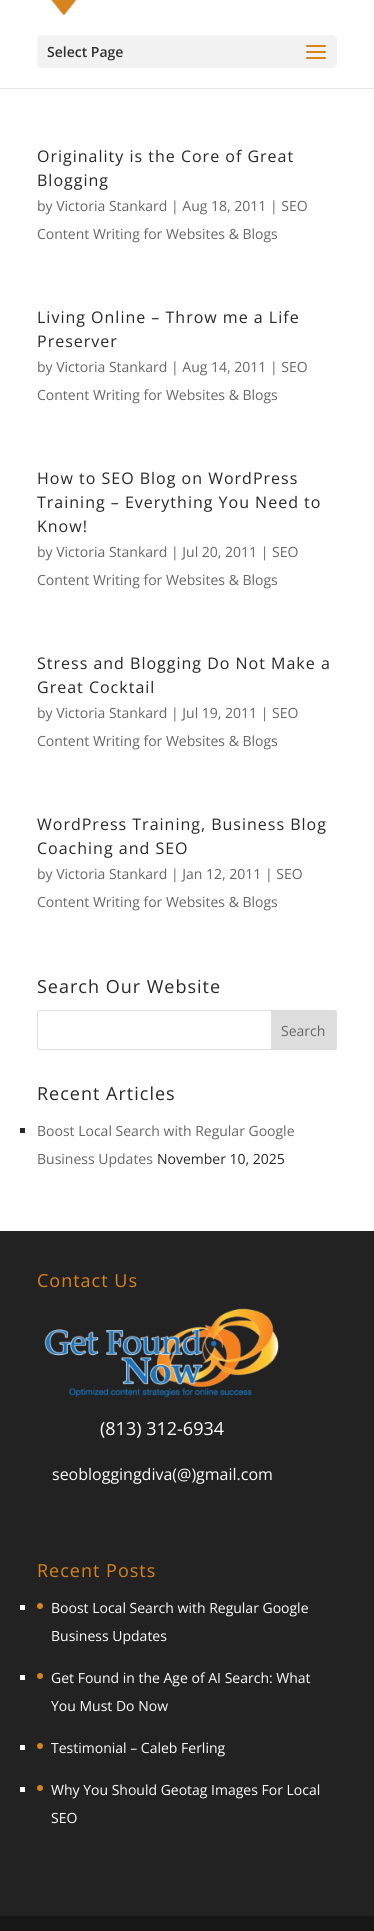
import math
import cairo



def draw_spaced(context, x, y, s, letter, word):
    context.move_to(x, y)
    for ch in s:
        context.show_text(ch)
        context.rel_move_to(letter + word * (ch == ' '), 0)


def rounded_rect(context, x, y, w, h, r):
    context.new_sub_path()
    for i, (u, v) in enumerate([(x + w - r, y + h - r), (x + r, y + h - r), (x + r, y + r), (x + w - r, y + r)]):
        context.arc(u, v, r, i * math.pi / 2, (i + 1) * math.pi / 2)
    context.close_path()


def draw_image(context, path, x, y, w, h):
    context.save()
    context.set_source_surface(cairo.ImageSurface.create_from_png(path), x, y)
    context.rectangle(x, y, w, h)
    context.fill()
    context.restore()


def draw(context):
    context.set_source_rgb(1, 1, 1)
    context.paint()
    context.set_source_rgb(230 / 255, 230 / 255, 230 / 255)
    context.rectangle(0, 88, 374, 1)
    context.fill()
    draw_image(context, "images/1.png", 51, 0, 26, 15)
    context.set_source_rgb(242 / 255, 242 / 255, 242 / 255)
    rounded_rect(context, 37, 35, 300, 33, 5)
    context.fill()
    draw_image(context, "images/2.png", 306, 45, 20, 14)
    rounded_rect(context, 37.5, 1010.5, 299, 39, 2.5)
    context.set_source_rgb(221 / 255, 221 / 255, 221 / 255)
    context.set_line_width(1)
    context.stroke()
    context.new_path()
    context.move_to(271.5, 1010.5)
    context.line_to(334, 1010.5)
    context.curve_to(335.5, 1010.5, 336.5, 1011.5, 336.5, 1013)
    context.line_to(336.5, 1047)
    context.curve_to(336.5, 1048.5, 335.5, 1049.5, 334, 1049.5)
    context.line_to(271.5, 1049.5)
    context.close_path()
    context.fill_preserve()
    context.stroke()
    context.set_source_rgb(40 / 255, 40 / 255, 40 / 255)
    context.rectangle(20, 1128, 5, 5)
    context.fill()
    context.set_source_rgb(34 / 255, 34 / 255, 34 / 255)
    context.rectangle(0, 1231, 374, 685)
    context.fill()
    draw_image(context, "images/3.png", 44, 1308, 235, 90)
    context.set_source_rgb(1, 1, 1)
    context.rectangle(20, 1605, 5, 5)
    context.fill()
    context.set_source_rgb(215 / 255, 132 / 255, 28 / 255)
    context.arc(40, 1606, 3, 0, 2 * math.pi)
    context.fill()
    context.set_source_rgb(1, 1, 1)
    context.rectangle(20, 1675, 5, 5)
    context.fill()
    context.set_source_rgb(215 / 255, 132 / 255, 28 / 255)
    context.arc(40, 1676, 3, 0, 2 * math.pi)
    context.fill()
    context.set_source_rgb(1, 1, 1)
    context.rectangle(20, 1745, 5, 5)
    context.fill()
    context.set_source_rgb(215 / 255, 132 / 255, 28 / 255)
    context.arc(40, 1746, 3, 0, 2 * math.pi)
    context.fill()
    context.set_source_rgb(1, 1, 1)
    context.rectangle(20, 1787, 5, 5)
    context.fill()
    context.set_source_rgb(215 / 255, 132 / 255, 28 / 255)
    context.arc(40, 1788, 3, 0, 2 * math.pi)
    context.fill()
    context.set_source_rgb(23 / 255, 23 / 255, 23 / 255)
    context.rectangle(0, 1916, 374, 15)
    context.fill()
    context.select_font_face("Open Sans SemiBold")
    context.set_font_size(14)
    context.set_source_rgb(48 / 255, 48 / 255, 48 / 255)
    context.move_to(47, 57)
    context.show_text("Select Page")
    context.select_font_face("Open Sans")
    context.set_font_size(16)
    context.set_source_rgb(40 / 255, 40 / 255, 40 / 255)
    draw_spaced(context, 37, 162, "Originality is the Core of Great", 1, 0)
    draw_spaced(context, 37, 186, "Blogging", 1, 0)
    context.set_font_size(14)
    context.set_source_rgb(102 / 255, 102 / 255, 102 / 255)
    context.move_to(37, 211)
    context.show_text("by Victoria Stankard | Aug 18, 2011 | SEO")
    context.move_to(37, 239)
    context.show_text("Content Writing for Websites & Blogs")
    context.set_font_size(16)
    context.set_source_rgb(40 / 255, 40 / 255, 40 / 255)
    draw_spaced(context, 37, 323, "Living Online – Throw me a Life", 1, 0)
    draw_spaced(context, 37, 347, "Preserver", 1, 0)
    context.set_font_size(14)
    context.set_source_rgb(102 / 255, 102 / 255, 102 / 255)
    context.move_to(37, 372)
    context.show_text("by Victoria Stankard | Aug 14, 2011 | SEO")
    context.move_to(37, 400)
    context.show_text("Content Writing for Websites & Blogs")
    context.set_font_size(16)
    context.set_source_rgb(40 / 255, 40 / 255, 40 / 255)
    draw_spaced(context, 37, 484, "How to SEO Blog on WordPress", 1, 0)
    draw_spaced(context, 37, 508, "Training – Everything You Need to", 1, 0)
    draw_spaced(context, 37, 532, "Know!", 1, 0)
    context.set_font_size(14)
    context.set_source_rgb(102 / 255, 102 / 255, 102 / 255)
    context.move_to(37, 557)
    context.show_text("by Victoria Stankard | Jul 20, 2011 | SEO")
    context.move_to(37, 585)
    context.show_text("Content Writing for Websites & Blogs")
    context.set_font_size(16)
    context.set_source_rgb(40 / 255, 40 / 255, 40 / 255)
    draw_spaced(context, 37, 669, "Stress and Blogging Do Not Make a", 1, 0)
    draw_spaced(context, 37, 693, "Great Cocktail", 1, 0)
    context.set_font_size(14)
    context.set_source_rgb(102 / 255, 102 / 255, 102 / 255)
    context.move_to(37, 718)
    context.show_text("by Victoria Stankard | Jul 19, 2011 | SEO")
    context.move_to(37, 746)
    context.show_text("Content Writing for Websites & Blogs")
    context.set_font_size(16)
    context.set_source_rgb(40 / 255, 40 / 255, 40 / 255)
    draw_spaced(context, 37, 830, "WordPress Training, Business Blog", 1, 0)
    draw_spaced(context, 37, 854, "Coaching and SEO", 1, 0)
    context.set_font_size(14)
    context.set_source_rgb(102 / 255, 102 / 255, 102 / 255)
    context.move_to(37, 879)
    context.show_text("by Victoria Stankard | Jan 12, 2011 | SEO")
    context.move_to(37, 907)
    context.show_text("Content Writing for Websites & Blogs")
    context.set_font_size(18)
    context.set_source_rgb(40 / 255, 40 / 255, 40 / 255)
    draw_spaced(context, 37, 993, "Search Our Website", 1, 0)
    context.set_font_size(14)
    context.set_source_rgb(102 / 255, 102 / 255, 102 / 255)
    context.move_to(281, 1036)
    context.show_text("Search")
    context.set_font_size(18)
    context.set_source_rgb(40 / 255, 40 / 255, 40 / 255)
    draw_spaced(context, 37, 1100, "Recent Articles", 1, 0)
    context.set_font_size(14)
    context.set_source_rgb(102 / 255, 102 / 255, 102 / 255)
    context.move_to(37, 1136)
    context.show_text("Boost Local Search with Regular Google")
    context.move_to(37, 1164)
    context.show_text("Business Updates")
    context.set_source_rgb(40 / 255, 40 / 255, 40 / 255)
    context.move_to(157, 1164)
    context.show_text("November 10, 2025")
    context.set_font_size(18)
    context.set_source_rgb(215 / 255, 132 / 255, 28 / 255)
    draw_spaced(context, 37, 1287, "Contact Us", 1, 0)
    context.set_source_rgb(1, 1, 1)
    context.move_to(100, 1435)
    context.show_text("(813) 312-6934")
    context.set_font_size(16)
    context.move_to(52, 1480)
    context.show_text("seobloggingdiva(@)gmail.com")
    context.set_font_size(18)
    context.set_source_rgb(215 / 255, 132 / 255, 28 / 255)
    draw_spaced(context, 37, 1577, "Recent Posts", 1, 0)
    context.set_font_size(14)
    context.set_source_rgb(1, 1, 1)
    context.move_to(51, 1613)
    context.show_text("Boost Local Search with Regular Google")
    context.move_to(51, 1641)
    context.show_text("Business Updates")
    context.move_to(51, 1683)
    context.show_text("Get Found in the Age of AI Search: What")
    context.move_to(51, 1711)
    context.show_text("You Must Do Now")
    context.move_to(51, 1753)
    context.show_text("Testimonial – Caleb Ferling")
    context.move_to(51, 1795)
    context.show_text("Why You Should Geotag Images For Local")
    context.move_to(51, 1823)
    context.show_text("SEO")


surface = cairo.ImageSurface(cairo.Format.RGB24, 374, 1931)
context = cairo.Context(surface)
options = cairo.FontOptions()
options.set_hint_metrics(cairo.HintMetrics.OFF)
options.set_hint_style(cairo.HintStyle.NONE)
context.set_font_options(options)
context.set_miter_limit(4)
draw(context)
surface.write_to_png("out.png")
